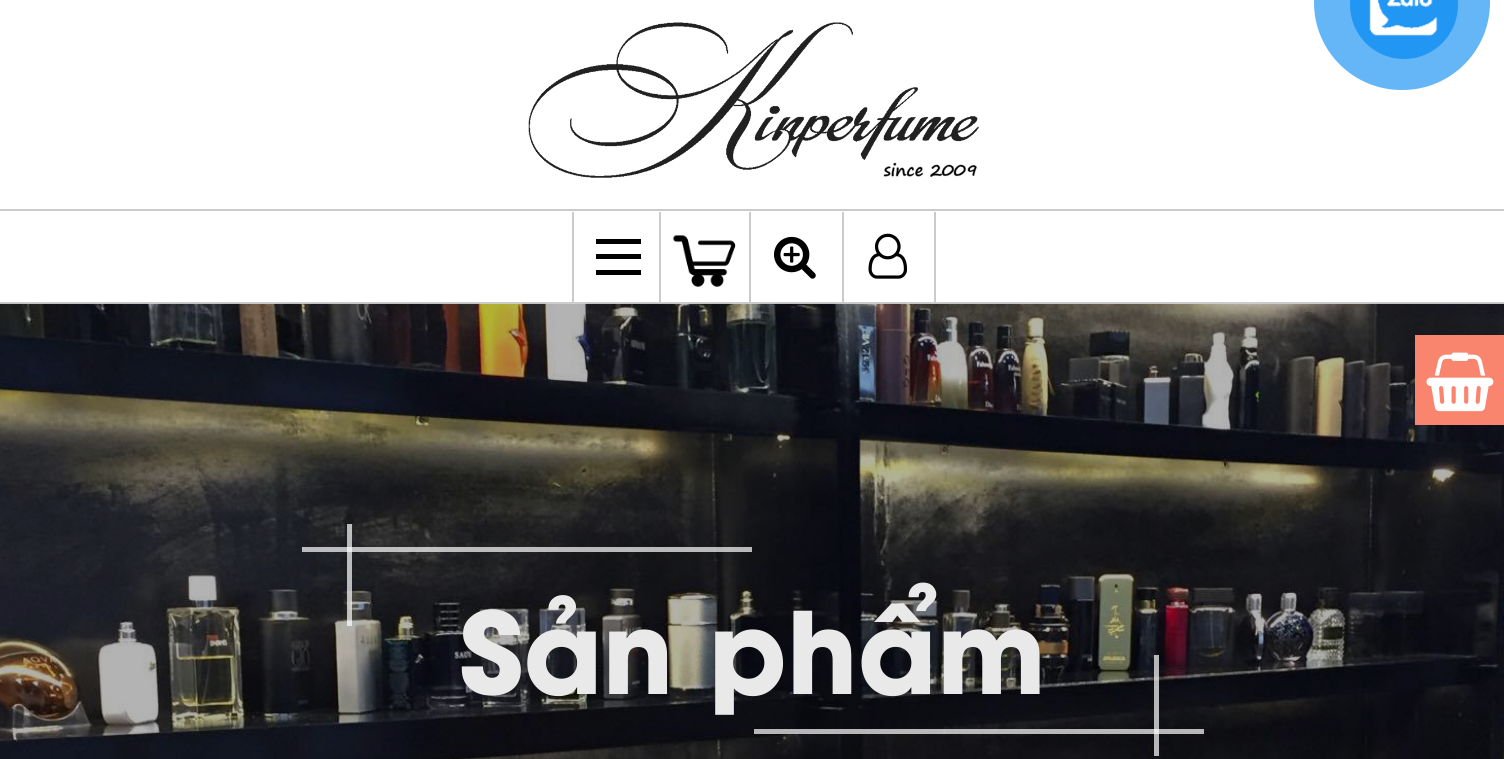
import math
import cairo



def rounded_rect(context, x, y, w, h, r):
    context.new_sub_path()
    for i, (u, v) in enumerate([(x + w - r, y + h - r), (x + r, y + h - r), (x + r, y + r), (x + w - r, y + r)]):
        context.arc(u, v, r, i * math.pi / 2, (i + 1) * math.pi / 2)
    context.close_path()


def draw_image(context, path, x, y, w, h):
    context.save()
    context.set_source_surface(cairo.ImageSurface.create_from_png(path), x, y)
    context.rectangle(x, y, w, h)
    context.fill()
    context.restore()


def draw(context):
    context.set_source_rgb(1, 1, 1)
    context.paint()
    context.set_source_rgb(100 / 255, 182 / 255, 247 / 255)
    rounded_rect(context, 1314, -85, 176, 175, 87.5)
    context.fill()
    context.set_source_rgb(33 / 255, 150 / 255, 243 / 255)
    context.arc(1404, 5, 54, 0, 2 * math.pi)
    context.fill()
    draw_image(context, "images/1.png", 1369, 0, 69, 36)
    draw_image(context, "images/2.png", 528, 22, 451, 156)
    context.set_source_rgb(204 / 255, 203 / 255, 203 / 255)
    context.rectangle(0, 209, 1504, 2)
    context.fill()
    context.rectangle(0, 302, 1504, 2)
    context.fill()
    context.rectangle(659, 212, 2, 90)
    context.fill()
    context.rectangle(572, 212, 2, 90)
    context.fill()
    context.set_source_rgb(0, 0, 0)
    context.rectangle(596, 254, 45, 5)
    context.fill()
    context.rectangle(596, 239, 45, 5)
    context.fill()
    context.rectangle(596, 270, 45, 5)
    context.fill()
    context.set_source_rgb(204 / 255, 203 / 255, 203 / 255)
    context.rectangle(749, 212, 2, 90)
    context.fill()
    draw_image(context, "images/3.png", 672, 235, 64, 52)
    context.rectangle(842, 212, 2, 90)
    context.fill()
    draw_image(context, "images/4.png", 774, 236, 42, 43)
    context.rectangle(934, 212, 2, 90)
    context.fill()
    draw_image(context, "images/5.png", 868, 233, 40, 46)
    draw_image(context, "images/7.png", 0, 303, 1504, 456)
    context.set_source_rgb(249 / 255, 133 / 255, 111 / 255)
    context.rectangle(1415, 335, 89, 90)
    context.fill()
    draw_image(context, "images/6.png", 1426, 352, 68, 60)
    context.set_source_rgba(1, 1, 1, 0.7)
    context.rectangle(347, 524, 5, 102)
    context.fill()
    context.rectangle(302, 547, 450, 5)
    context.fill()
    context.rectangle(1154, 655, 5, 101)
    context.fill()
    context.rectangle(754, 729, 450, 5)
    context.fill()
    context.select_font_face("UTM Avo", cairo.FontSlant.NORMAL, cairo.FontWeight.BOLD)
    context.set_font_size(112.5)
    context.set_source_rgb(233 / 255, 233 / 255, 233 / 255)
    context.move_to(459, 694)
    context.show_text("Sản phẩm")


surface = cairo.ImageSurface(cairo.Format.RGB24, 1504, 759)
context = cairo.Context(surface)
options = cairo.FontOptions()
options.set_hint_metrics(cairo.HintMetrics.OFF)
options.set_hint_style(cairo.HintStyle.NONE)
context.set_font_options(options)
context.set_miter_limit(4)
draw(context)
surface.write_to_png("out.png")
